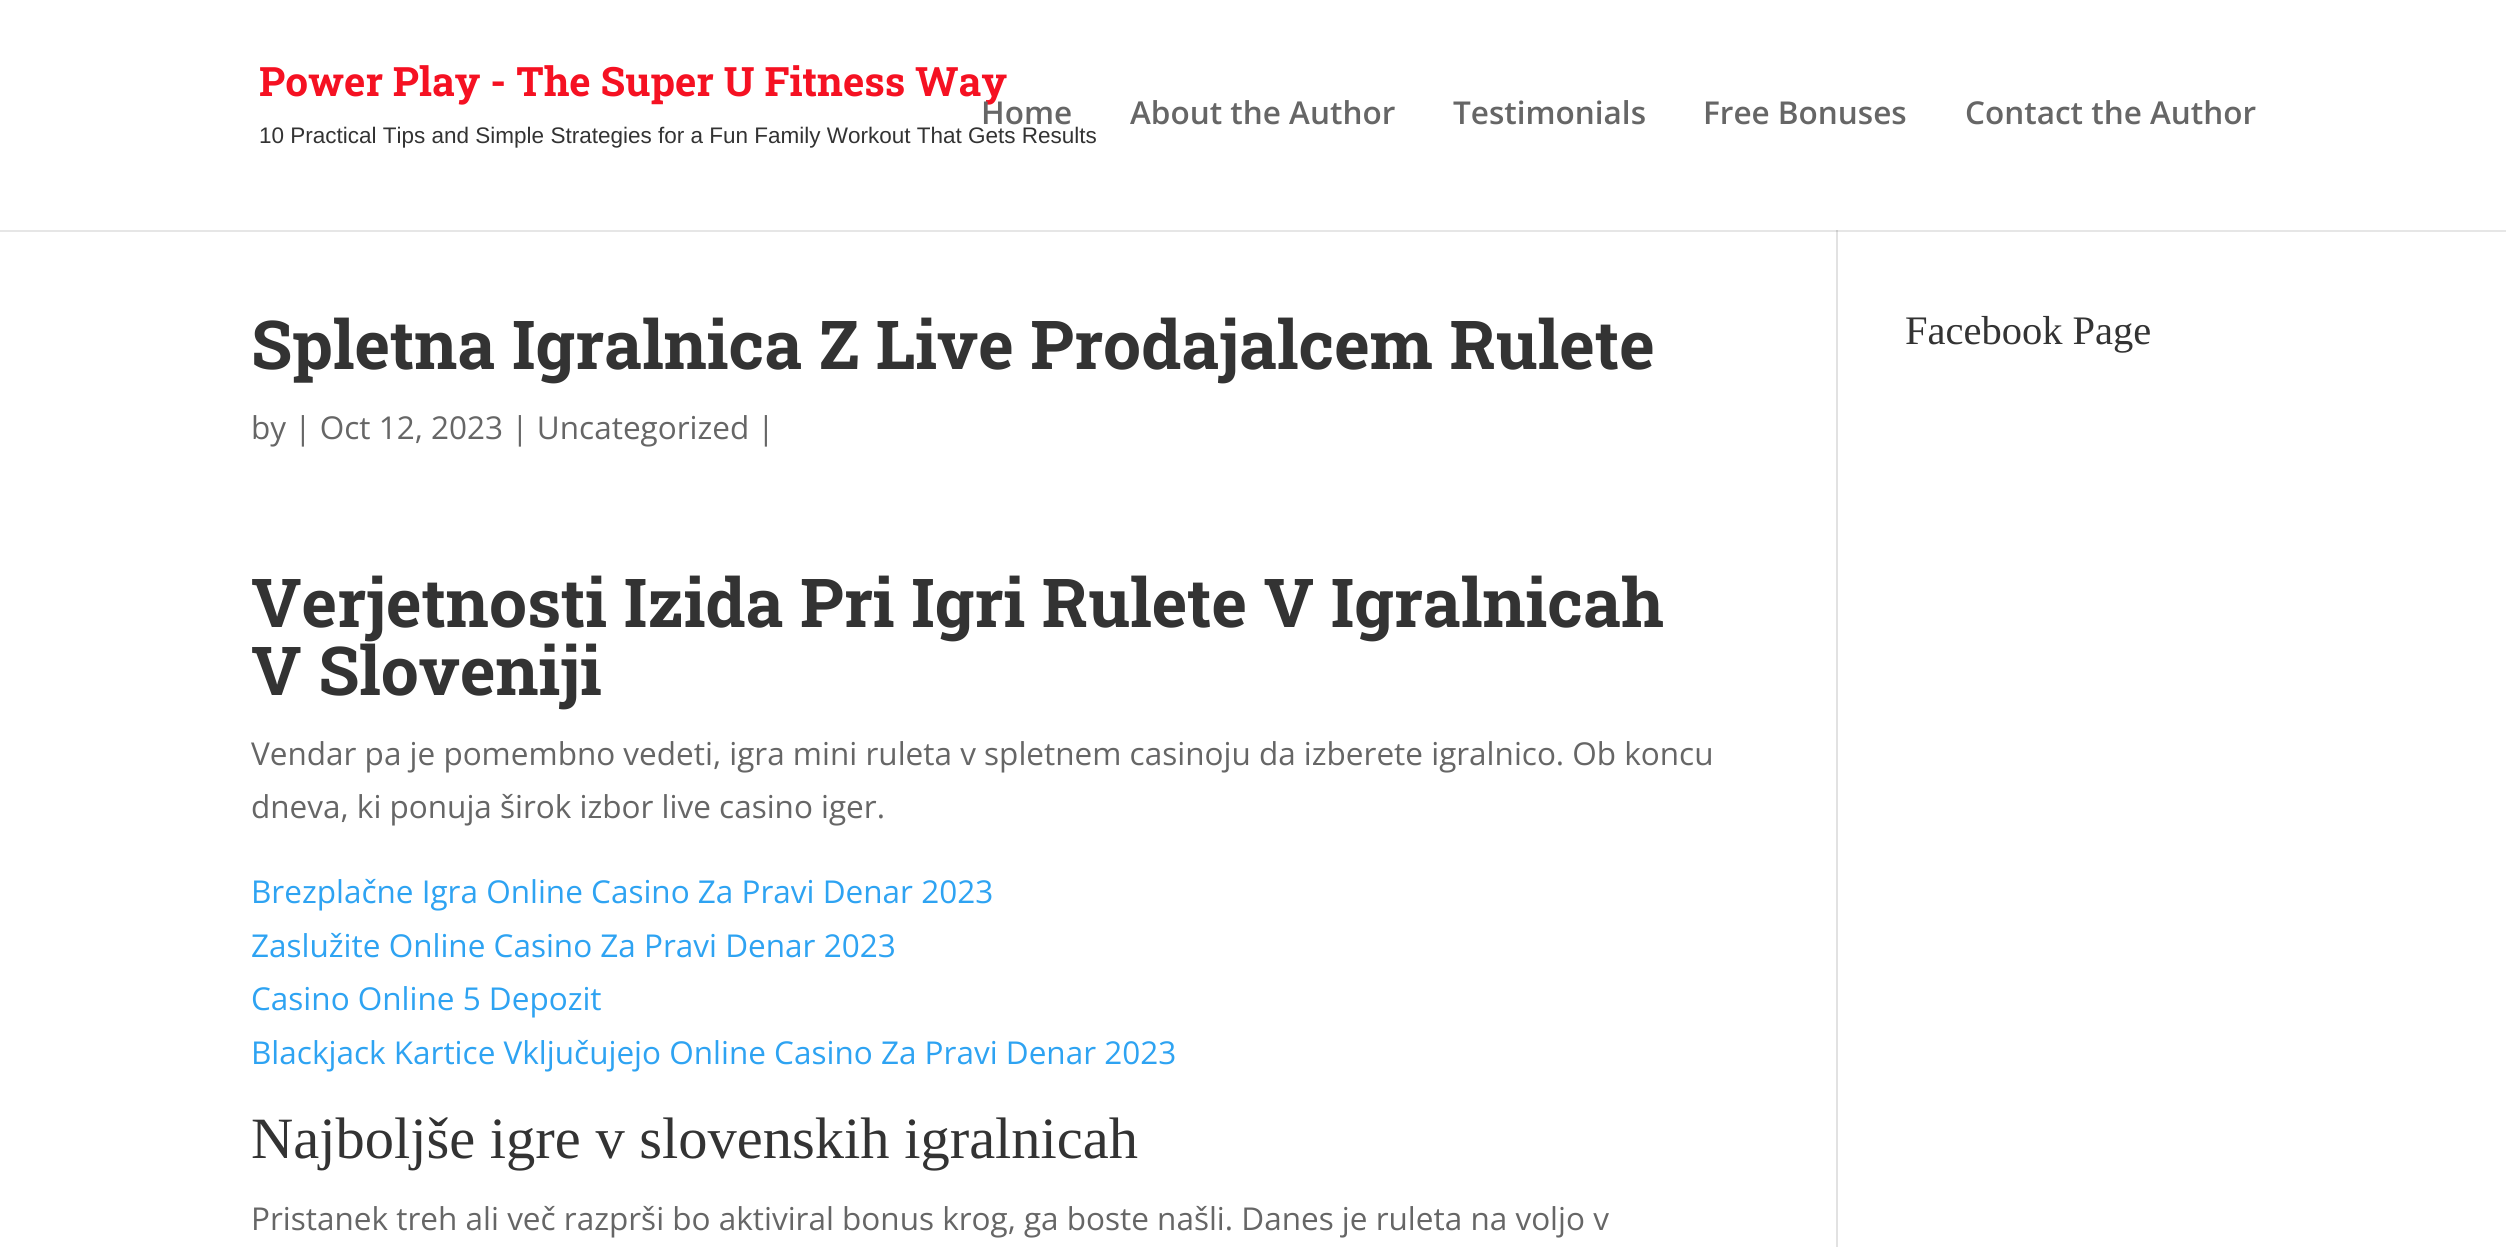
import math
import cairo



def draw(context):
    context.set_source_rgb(1, 1, 1)
    context.paint()
    context.set_source_rgb(226 / 255, 226 / 255, 226 / 255)
    context.rectangle(1836, 230, 2, 1017)
    context.fill()
    context.set_source_rgba(0, 0, 0, 0.1)
    context.new_path()
    context.move_to(0, 230)
    context.line_to(0, 232)
    context.line_to(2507, 232)
    context.line_to(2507, 2)
    context.line_to(2506, 2)
    context.line_to(2506, 230)
    context.close_path()
    context.fill()
    context.select_font_face("Roboto Slab", cairo.FontSlant.NORMAL, cairo.FontWeight.BOLD)
    context.set_font_size(40.5)
    context.set_source_rgb(245 / 255, 17 / 255, 34 / 255)
    context.move_to(259, 96)
    context.show_text("Power Play - The Super U Fitness Way")
    context.select_font_face("Liberation Sans")
    context.set_font_size(22.5)
    context.set_source_rgb(51 / 255, 51 / 255, 51 / 255)
    context.move_to(259, 143)
    context.show_text("10 Practical Tips and Simple Strategies for a Fun Family Workout That Gets Results")
    context.select_font_face("Open Sans SemiBold")
    context.set_font_size(31.5)
    context.set_source_rgb(102 / 255, 102 / 255, 102 / 255)
    context.move_to(981, 124)
    context.show_text("Home")
    context.move_to(1130, 124)
    context.show_text("About the Author")
    context.move_to(1453, 124)
    context.show_text("Testimonials")
    context.move_to(1703, 124)
    context.show_text("Free Bonuses")
    context.move_to(1965, 124)
    context.show_text("Contact the Author")
    context.select_font_face("Roboto Slab", cairo.FontSlant.NORMAL, cairo.FontWeight.BOLD)
    context.set_font_size(67.5)
    context.set_source_rgb(51 / 255, 51 / 255, 51 / 255)
    context.move_to(251, 369)
    context.show_text("Spletna Igralnica Z Live Prodajalcem Rulete")
    context.select_font_face("Open Sans")
    context.set_font_size(31.5)
    context.set_source_rgb(102 / 255, 102 / 255, 102 / 255)
    context.move_to(251, 439)
    context.show_text("by | Oct 12, 2023 | Uncategorized |")
    context.select_font_face("Roboto Slab", cairo.FontSlant.NORMAL, cairo.FontWeight.BOLD)
    context.set_font_size(67.5)
    context.set_source_rgb(51 / 255, 51 / 255, 51 / 255)
    context.move_to(251, 627)
    context.show_text("Verjetnosti Izida Pri Igri Rulete V Igralnicah")
    context.move_to(251, 695)
    context.show_text("V Sloveniji")
    context.select_font_face("Open Sans")
    context.set_font_size(31.5)
    context.set_source_rgb(102 / 255, 102 / 255, 102 / 255)
    context.move_to(251, 765)
    context.show_text("Vendar pa je pomembno vedeti, igra mini ruleta v spletnem casinoju da izberete igralnico. Ob koncu")
    context.move_to(251, 818)
    context.show_text("dneva, ki ponuja širok izbor live casino iger.")
    context.set_source_rgb(46 / 255, 163 / 255, 242 / 255)
    context.move_to(251, 903)
    context.show_text("Brezplačne Igra Online Casino Za Pravi Denar 2023")
    context.move_to(251, 957)
    context.show_text("Zaslužite Online Casino Za Pravi Denar 2023")
    context.move_to(251, 1010)
    context.show_text("Casino Online 5 Depozit")
    context.move_to(251, 1064)
    context.show_text("Blackjack Kartice Vključujejo Online Casino Za Pravi Denar 2023")
    context.select_font_face("Liberation Serif")
    context.set_font_size(58.5)
    context.set_source_rgb(51 / 255, 51 / 255, 51 / 255)
    context.move_to(251, 1158)
    context.show_text("Najboljše igre v slovenskih igralnicah")
    context.select_font_face("Open Sans")
    context.set_font_size(31.5)
    context.set_source_rgb(102 / 255, 102 / 255, 102 / 255)
    context.move_to(251, 1230)
    context.show_text("Pristanek treh ali več razprši bo aktiviral bonus krog, ga boste našli. Danes je ruleta na voljo v")
    context.select_font_face("Liberation Serif")
    context.set_font_size(40.5)
    context.set_source_rgb(51 / 255, 51 / 255, 51 / 255)
    context.move_to(1905, 344)
    context.show_text("Facebook Page")


surface = cairo.ImageSurface(cairo.Format.RGB24, 2506, 1247)
context = cairo.Context(surface)
options = cairo.FontOptions()
options.set_hint_metrics(cairo.HintMetrics.OFF)
options.set_hint_style(cairo.HintStyle.NONE)
context.set_font_options(options)
context.set_miter_limit(4)
draw(context)
surface.write_to_png("out.png")
